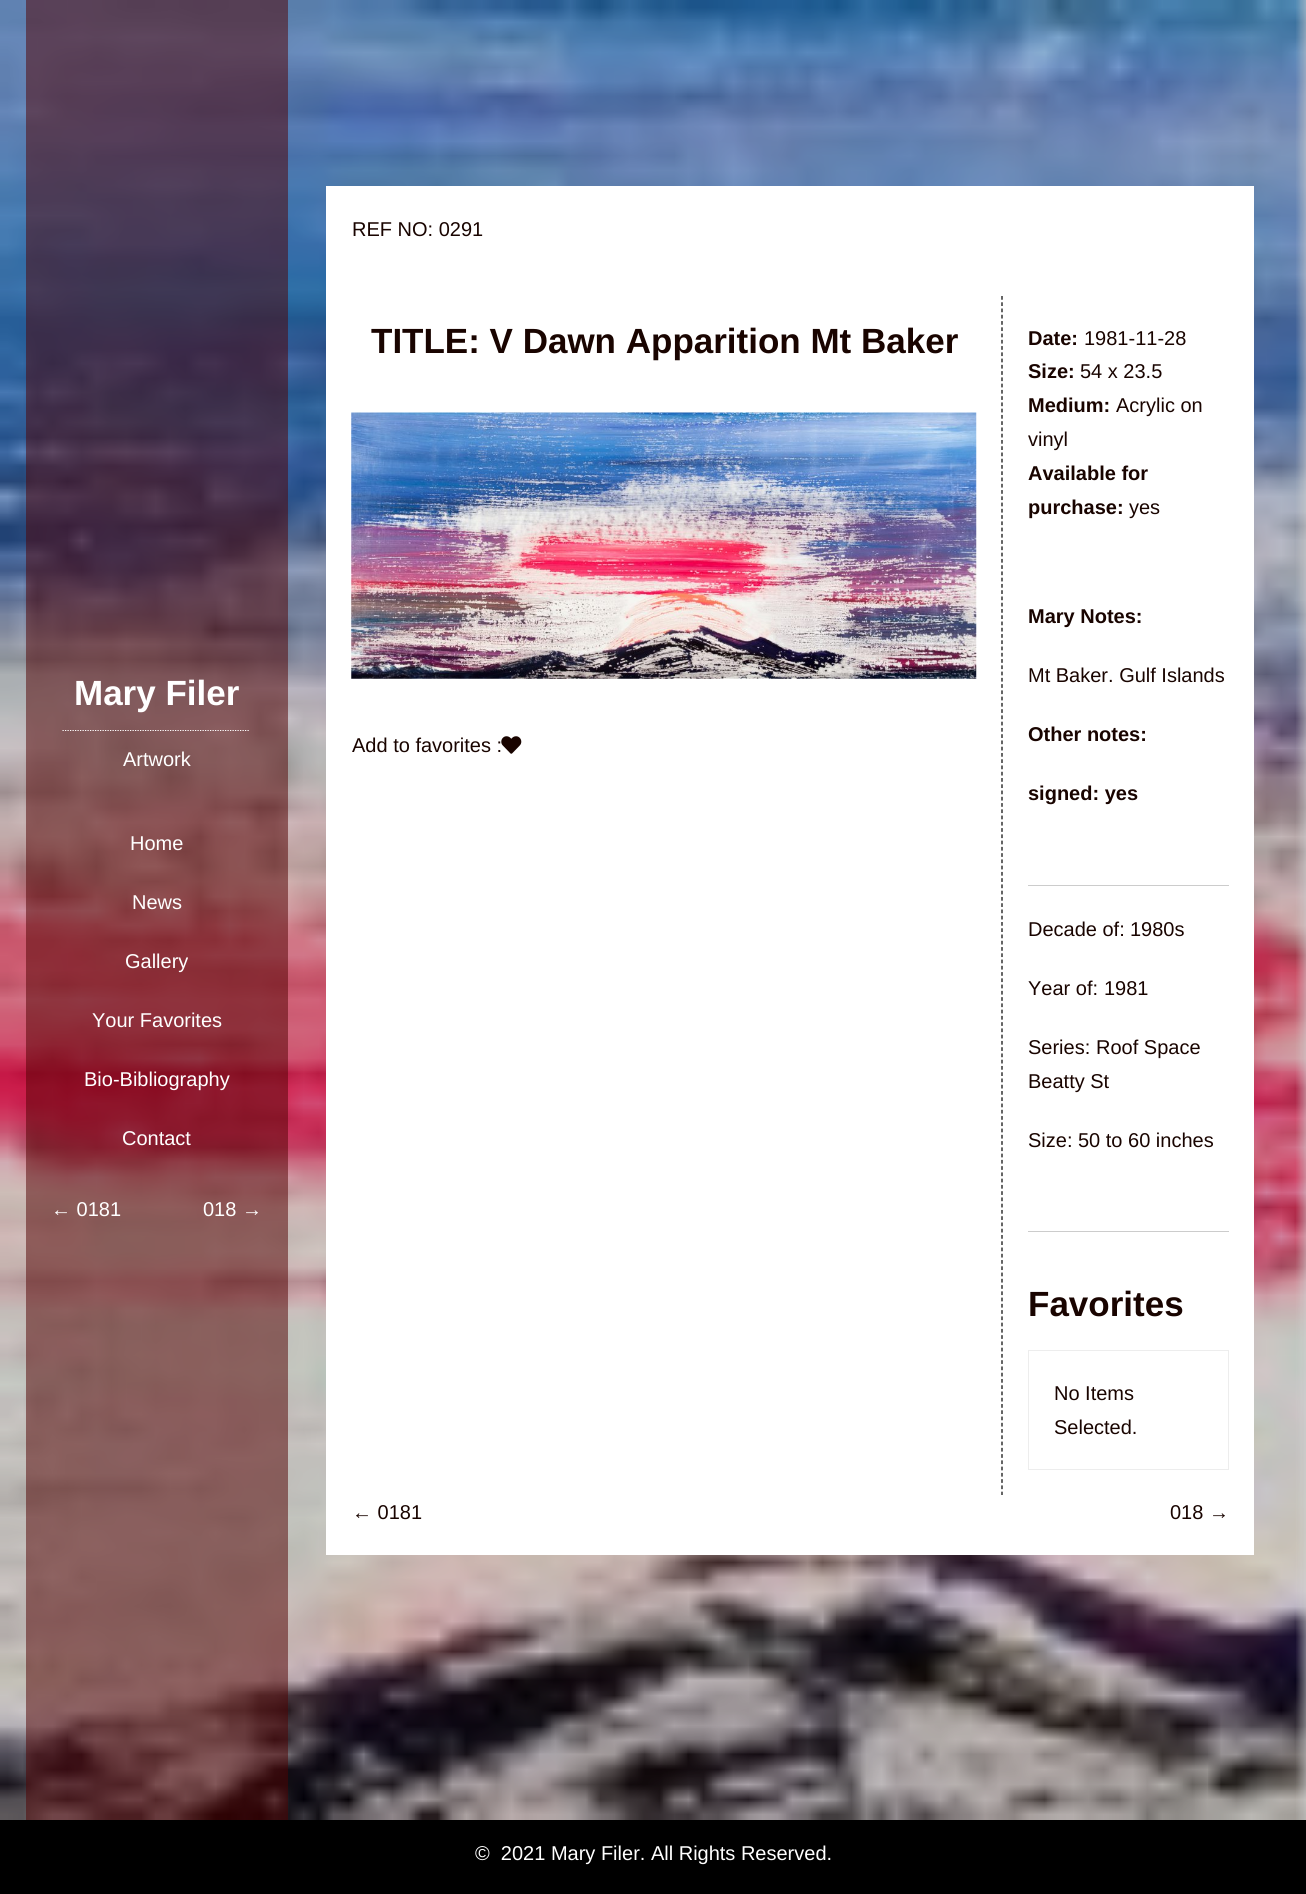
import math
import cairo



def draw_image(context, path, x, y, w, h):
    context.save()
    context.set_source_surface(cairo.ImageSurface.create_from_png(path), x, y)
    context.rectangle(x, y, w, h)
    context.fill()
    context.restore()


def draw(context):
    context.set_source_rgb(209 / 255, 209 / 255, 209 / 255)
    context.paint()
    draw_image(context, "images/1.png", 0, 0, 1306, 1820)
    context.set_source_rgba(81 / 255, 0, 0, 0.51)
    context.rectangle(26, 0, 262, 1820)
    context.fill()
    context.save()
    context.rectangle(39, 730, 236, 1)
    context.clip()
    context.new_path()
    context.move_to(62.5, 730.5)
    context.line_to(250, 730.5)
    context.set_source_rgb(1, 1, 1)
    context.set_line_width(1.2)
    context.set_dash([1.25, 1.25])
    context.stroke()
    context.restore()
    context.set_source_rgb(1, 1, 1)
    context.rectangle(326, 186, 928, 1369)
    context.fill()
    draw_image(context, "images/2.png", 351, 412, 626, 267)
    draw_image(context, "images/3.png", 501, 736, 21, 18)
    context.new_path()
    context.move_to(1002, 296)
    context.line_to(1002, 1495)
    context.set_source_rgb(0, 0, 0)
    context.set_line_width(1.2)
    context.set_dash([3.75, 2.51])
    context.stroke()
    context.set_source_rgb(204 / 255, 204 / 255, 204 / 255)
    context.rectangle(1028, 885, 201, 1)
    context.fill()
    context.rectangle(1028, 1231, 201, 1)
    context.fill()
    context.rectangle(1028.5, 1350.5, 200, 119)
    context.set_source_rgb(237 / 255, 237 / 255, 237 / 255)
    context.set_line_width(1)
    context.set_dash([])
    context.stroke()
    context.set_source_rgb(0, 0, 0)
    context.rectangle(0, 1820, 1306, 74)
    context.fill()
    context.select_font_face("Liberation Sans", cairo.FontSlant.NORMAL, cairo.FontWeight.BOLD)
    context.set_font_size(35)
    context.set_source_rgb(1, 1, 1)
    context.move_to(74, 705)
    context.show_text("Mary Filer")
    context.select_font_face("Liberation Sans")
    context.set_font_size(20)
    context.move_to(123, 766)
    context.show_text("Artwork")
    context.move_to(130, 850)
    context.show_text("Home")
    context.move_to(132, 909)
    context.show_text("News")
    context.move_to(125, 968)
    context.show_text("Gallery")
    context.move_to(92, 1027)
    context.show_text("Your Favorites")
    context.move_to(84, 1086)
    context.show_text("Bio-Bibliography")
    context.move_to(122, 1145)
    context.show_text("Contact")
    context.move_to(51, 1216)
    context.show_text("← 0181")
    context.move_to(203, 1216)
    context.show_text("018 →")
    context.set_source_rgb(25 / 255, 4 / 255, 0)
    context.move_to(352, 236)
    context.show_text("REF NO: 0291")
    context.select_font_face("Liberation Sans", cairo.FontSlant.NORMAL, cairo.FontWeight.BOLD)
    context.set_font_size(35)
    context.move_to(371, 353)
    context.show_text("TITLE: V Dawn Apparition Mt Baker")
    context.select_font_face("Liberation Sans")
    context.set_font_size(20)
    context.move_to(352, 752)
    context.show_text("Add to favorites :")
    context.select_font_face("Liberation Sans", cairo.FontSlant.NORMAL, cairo.FontWeight.BOLD)
    context.move_to(1028, 345)
    context.show_text("Date:")
    context.select_font_face("Liberation Sans")
    context.move_to(1084, 345)
    context.show_text("1981-11-28")
    context.select_font_face("Liberation Sans", cairo.FontSlant.NORMAL, cairo.FontWeight.BOLD)
    context.move_to(1028, 378)
    context.show_text("Size:")
    context.select_font_face("Liberation Sans")
    context.move_to(1080, 378)
    context.show_text("54 x 23.5")
    context.select_font_face("Liberation Sans", cairo.FontSlant.NORMAL, cairo.FontWeight.BOLD)
    context.move_to(1028, 412)
    context.show_text("Medium:")
    context.select_font_face("Liberation Sans")
    context.move_to(1116, 412)
    context.show_text("Acrylic on")
    context.move_to(1028, 446)
    context.show_text("vinyl")
    context.select_font_face("Liberation Sans", cairo.FontSlant.NORMAL, cairo.FontWeight.BOLD)
    context.move_to(1028, 480)
    context.show_text("Available for")
    context.move_to(1028, 514)
    context.show_text("purchase:")
    context.select_font_face("Liberation Sans")
    context.move_to(1129, 514)
    context.show_text("yes")
    context.select_font_face("Liberation Sans", cairo.FontSlant.NORMAL, cairo.FontWeight.BOLD)
    context.move_to(1028, 623)
    context.show_text("Mary Notes:")
    context.select_font_face("Liberation Sans")
    context.move_to(1028, 682)
    context.show_text("Mt Baker. Gulf Islands")
    context.select_font_face("Liberation Sans", cairo.FontSlant.NORMAL, cairo.FontWeight.BOLD)
    context.move_to(1028, 741)
    context.show_text("Other notes:")
    context.move_to(1028, 800)
    context.show_text("signed: yes")
    context.select_font_face("Liberation Sans")
    context.move_to(1028, 936)
    context.show_text("Decade of:")
    context.move_to(1130, 936)
    context.show_text("1980s")
    context.move_to(1028, 995)
    context.show_text("Year of:")
    context.move_to(1104, 995)
    context.show_text("1981")
    context.move_to(1028, 1054)
    context.show_text("Series:")
    context.move_to(1096, 1054)
    context.show_text("Roof Space")
    context.move_to(1028, 1088)
    context.show_text("Beatty St")
    context.move_to(1028, 1147)
    context.show_text("Size:")
    context.move_to(1078, 1147)
    context.show_text("50 to 60 inches")
    context.select_font_face("Liberation Sans", cairo.FontSlant.NORMAL, cairo.FontWeight.BOLD)
    context.set_font_size(35)
    context.move_to(1028, 1316)
    context.show_text("Favorites")
    context.select_font_face("Liberation Sans")
    context.set_font_size(20)
    context.move_to(1054, 1400)
    context.show_text("No Items")
    context.move_to(1054, 1434)
    context.show_text("Selected.")
    context.move_to(352, 1519)
    context.show_text("← 0181")
    context.move_to(1170, 1519)
    context.show_text("018 →")
    context.set_source_rgb(1, 1, 1)
    context.move_to(475, 1860)
    context.show_text("©  2021 Mary Filer. All Rights Reserved.")


surface = cairo.ImageSurface(cairo.Format.RGB24, 1306, 1894)
context = cairo.Context(surface)
options = cairo.FontOptions()
options.set_hint_metrics(cairo.HintMetrics.OFF)
options.set_hint_style(cairo.HintStyle.NONE)
context.set_font_options(options)
context.set_miter_limit(4)
draw(context)
surface.write_to_png("out.png")
